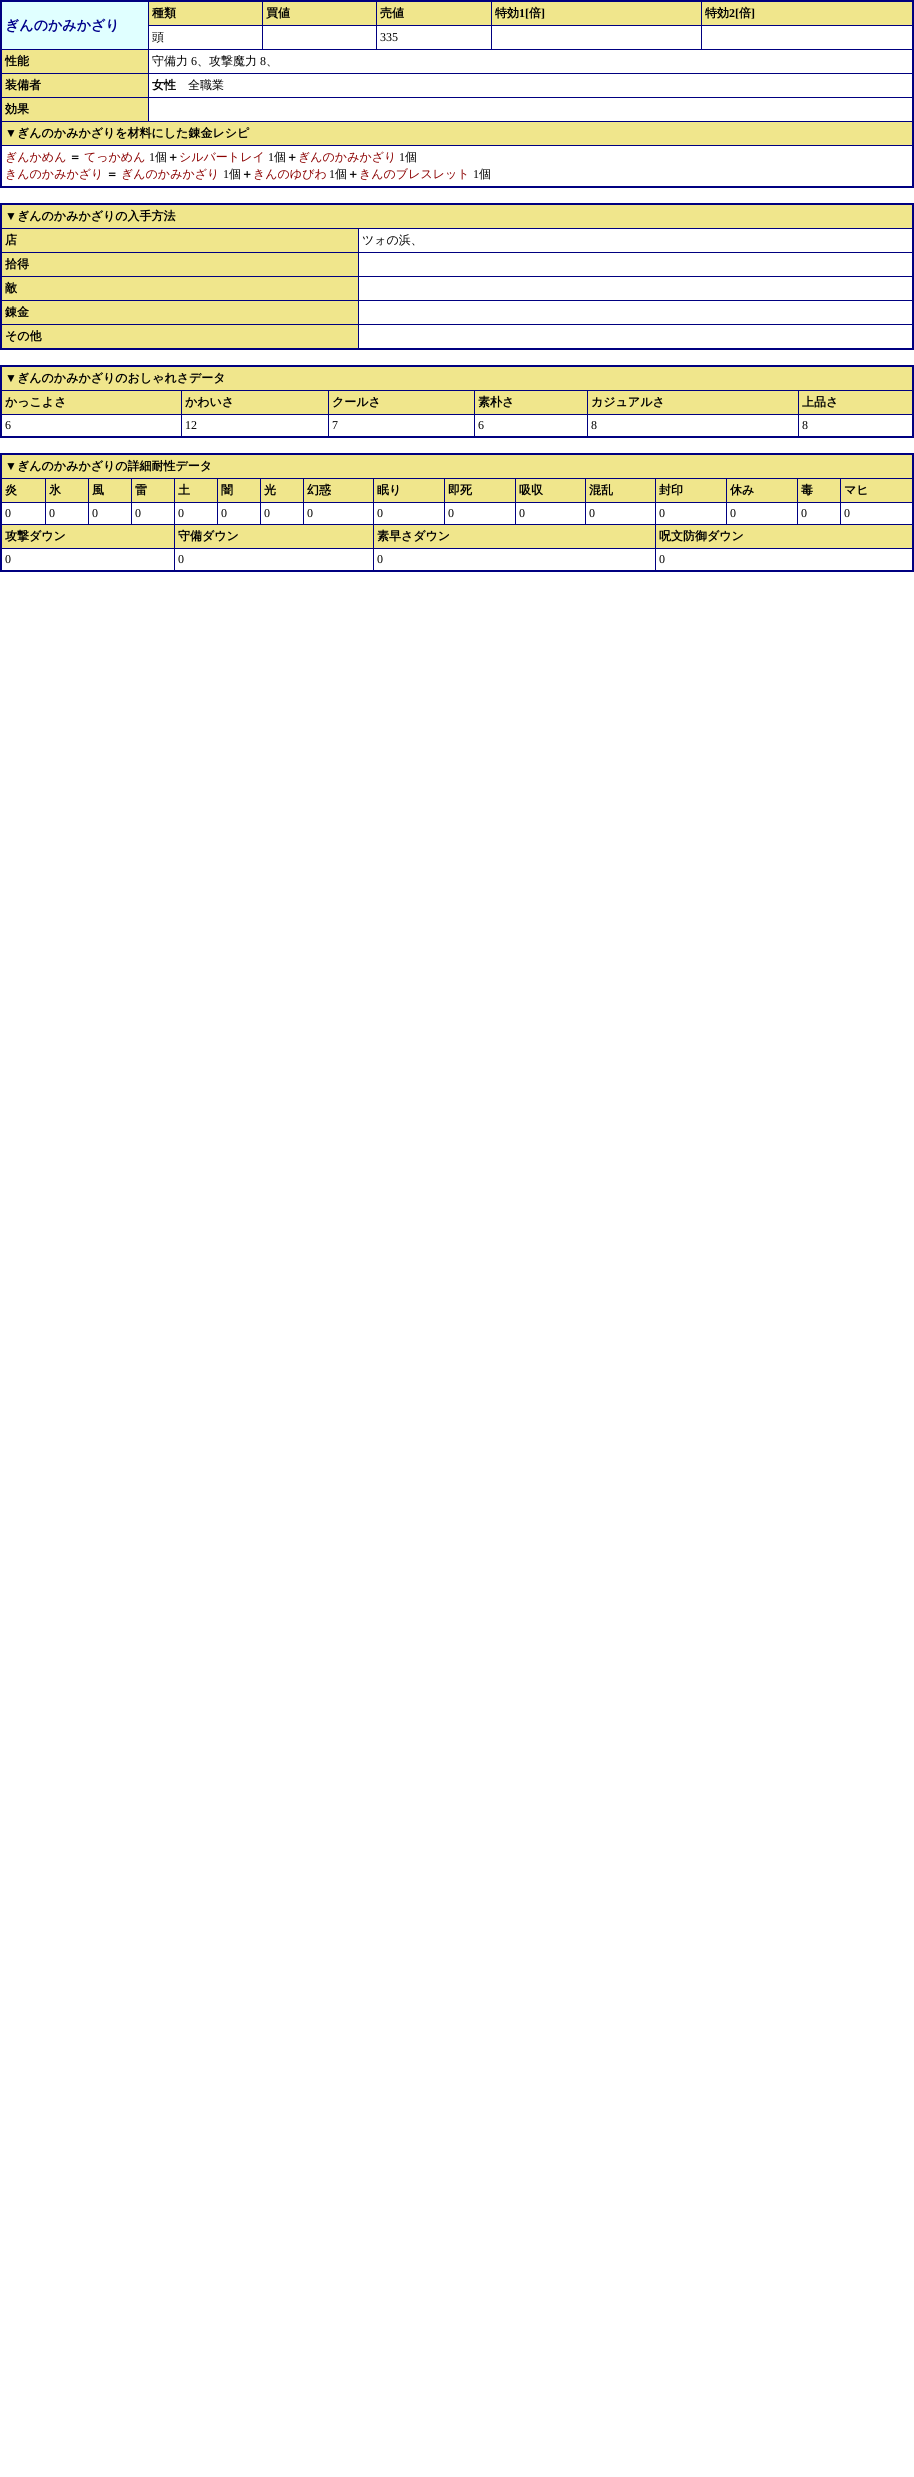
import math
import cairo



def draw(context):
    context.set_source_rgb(1, 1, 1)
    context.paint()
    context.set_source_rgb(0, 0, 128 / 255)
    context.rectangle(701, 25, 213, 1)
    context.fill()
    context.rectangle(148, 49, 766, 1)
    context.fill()
    context.rectangle(701, 25, 1, 25)
    context.fill()
    context.rectangle(491, 25, 211, 1)
    context.fill()
    context.rectangle(491, 25, 1, 25)
    context.fill()
    context.rectangle(376, 25, 116, 1)
    context.fill()
    context.rectangle(376, 25, 1, 25)
    context.fill()
    context.rectangle(262, 25, 115, 1)
    context.fill()
    context.rectangle(262, 25, 1, 25)
    context.fill()
    context.rectangle(148, 25, 115, 1)
    context.fill()
    context.rectangle(262, 1, 1, 25)
    context.fill()
    context.rectangle(376, 1, 1, 25)
    context.fill()
    context.rectangle(491, 1, 1, 25)
    context.fill()
    context.rectangle(701, 1, 1, 25)
    context.fill()
    context.rectangle(148, 73, 766, 1)
    context.fill()
    context.rectangle(148, 97, 766, 1)
    context.fill()
    context.rectangle(1, 121, 913, 1)
    context.fill()
    context.rectangle(148, 97, 1, 25)
    context.fill()
    context.rectangle(1, 97, 148, 1)
    context.fill()
    context.rectangle(148, 73, 1, 25)
    context.fill()
    context.rectangle(1, 73, 148, 1)
    context.fill()
    context.rectangle(148, 49, 1, 25)
    context.fill()
    context.rectangle(1, 49, 148, 1)
    context.fill()
    context.rectangle(148, 1, 1, 49)
    context.fill()
    context.rectangle(0, 0, 914, 2)
    context.fill()
    context.rectangle(1, 145, 913, 1)
    context.fill()
    context.rectangle(912, 0, 2, 188)
    context.fill()
    context.rectangle(0, 186, 914, 2)
    context.fill()
    context.rectangle(0, 0, 2, 188)
    context.fill()
    context.set_source_rgb(240 / 255, 230 / 255, 140 / 255)
    context.rectangle(149, 2, 113, 23)
    context.fill()
    context.rectangle(263, 2, 113, 23)
    context.fill()
    context.rectangle(377, 2, 114, 23)
    context.fill()
    context.rectangle(492, 2, 209, 23)
    context.fill()
    context.rectangle(702, 2, 210, 23)
    context.fill()
    context.set_source_rgb(224 / 255, 1, 1)
    context.rectangle(2, 2, 146, 47)
    context.fill()
    context.set_source_rgb(240 / 255, 230 / 255, 140 / 255)
    context.rectangle(2, 50, 146, 23)
    context.fill()
    context.rectangle(2, 74, 146, 23)
    context.fill()
    context.rectangle(2, 98, 146, 23)
    context.fill()
    context.rectangle(2, 122, 910, 23)
    context.fill()
    context.set_source_rgb(0, 0, 128 / 255)
    context.rectangle(0, 203, 914, 2)
    context.fill()
    context.rectangle(358, 228, 556, 1)
    context.fill()
    context.rectangle(358, 252, 556, 1)
    context.fill()
    context.rectangle(358, 276, 556, 1)
    context.fill()
    context.rectangle(358, 300, 556, 1)
    context.fill()
    context.rectangle(358, 324, 556, 1)
    context.fill()
    context.rectangle(912, 203, 2, 147)
    context.fill()
    context.rectangle(358, 324, 1, 26)
    context.fill()
    context.rectangle(0, 348, 914, 2)
    context.fill()
    context.rectangle(1, 324, 358, 1)
    context.fill()
    context.rectangle(358, 300, 1, 25)
    context.fill()
    context.rectangle(1, 300, 358, 1)
    context.fill()
    context.rectangle(358, 276, 1, 25)
    context.fill()
    context.rectangle(1, 276, 358, 1)
    context.fill()
    context.rectangle(358, 252, 1, 25)
    context.fill()
    context.rectangle(1, 252, 358, 1)
    context.fill()
    context.rectangle(358, 228, 1, 25)
    context.fill()
    context.rectangle(1, 228, 358, 1)
    context.fill()
    context.rectangle(0, 203, 2, 147)
    context.fill()
    context.set_source_rgb(240 / 255, 230 / 255, 140 / 255)
    context.rectangle(2, 205, 910, 23)
    context.fill()
    context.rectangle(2, 229, 356, 23)
    context.fill()
    context.rectangle(2, 253, 356, 23)
    context.fill()
    context.rectangle(2, 277, 356, 23)
    context.fill()
    context.rectangle(2, 301, 356, 23)
    context.fill()
    context.rectangle(2, 325, 356, 23)
    context.fill()
    context.set_source_rgb(0, 0, 128 / 255)
    context.rectangle(0, 365, 914, 2)
    context.fill()
    context.rectangle(798, 390, 116, 1)
    context.fill()
    context.rectangle(798, 414, 116, 1)
    context.fill()
    context.rectangle(912, 365, 2, 73)
    context.fill()
    context.rectangle(798, 414, 1, 24)
    context.fill()
    context.rectangle(587, 414, 212, 1)
    context.fill()
    context.rectangle(587, 414, 1, 24)
    context.fill()
    context.rectangle(474, 414, 114, 1)
    context.fill()
    context.rectangle(474, 414, 1, 24)
    context.fill()
    context.rectangle(328, 414, 147, 1)
    context.fill()
    context.rectangle(328, 414, 1, 24)
    context.fill()
    context.rectangle(181, 414, 148, 1)
    context.fill()
    context.rectangle(181, 414, 1, 24)
    context.fill()
    context.rectangle(0, 436, 914, 2)
    context.fill()
    context.rectangle(798, 390, 1, 25)
    context.fill()
    context.rectangle(587, 390, 212, 1)
    context.fill()
    context.rectangle(587, 390, 1, 25)
    context.fill()
    context.rectangle(474, 390, 114, 1)
    context.fill()
    context.rectangle(474, 390, 1, 25)
    context.fill()
    context.rectangle(328, 390, 147, 1)
    context.fill()
    context.rectangle(328, 390, 1, 25)
    context.fill()
    context.rectangle(181, 390, 148, 1)
    context.fill()
    context.rectangle(1, 414, 181, 1)
    context.fill()
    context.rectangle(181, 390, 1, 25)
    context.fill()
    context.rectangle(1, 390, 181, 1)
    context.fill()
    context.rectangle(0, 365, 2, 73)
    context.fill()
    context.set_source_rgb(240 / 255, 230 / 255, 140 / 255)
    context.rectangle(2, 367, 910, 23)
    context.fill()
    context.rectangle(2, 391, 179, 23)
    context.fill()
    context.rectangle(182, 391, 146, 23)
    context.fill()
    context.rectangle(329, 391, 145, 23)
    context.fill()
    context.rectangle(475, 391, 112, 23)
    context.fill()
    context.rectangle(588, 391, 210, 23)
    context.fill()
    context.rectangle(799, 391, 113, 23)
    context.fill()
    context.set_source_rgb(0, 0, 128 / 255)
    context.rectangle(0, 453, 914, 2)
    context.fill()
    context.rectangle(840, 478, 74, 1)
    context.fill()
    context.rectangle(840, 502, 74, 1)
    context.fill()
    context.rectangle(655, 524, 259, 1)
    context.fill()
    context.rectangle(655, 548, 259, 1)
    context.fill()
    context.rectangle(912, 453, 2, 119)
    context.fill()
    context.rectangle(655, 548, 1, 24)
    context.fill()
    context.rectangle(373, 548, 283, 1)
    context.fill()
    context.rectangle(373, 548, 1, 24)
    context.fill()
    context.rectangle(174, 548, 200, 1)
    context.fill()
    context.rectangle(174, 548, 1, 24)
    context.fill()
    context.rectangle(0, 570, 914, 2)
    context.fill()
    context.rectangle(840, 502, 1, 23)
    context.fill()
    context.rectangle(797, 502, 44, 1)
    context.fill()
    context.rectangle(840, 478, 1, 25)
    context.fill()
    context.rectangle(797, 478, 44, 1)
    context.fill()
    context.rectangle(797, 502, 1, 23)
    context.fill()
    context.rectangle(726, 502, 72, 1)
    context.fill()
    context.rectangle(797, 478, 1, 25)
    context.fill()
    context.rectangle(726, 478, 72, 1)
    context.fill()
    context.rectangle(726, 502, 1, 23)
    context.fill()
    context.rectangle(655, 502, 72, 1)
    context.fill()
    context.rectangle(726, 478, 1, 25)
    context.fill()
    context.rectangle(655, 478, 72, 1)
    context.fill()
    context.rectangle(655, 524, 1, 25)
    context.fill()
    context.rectangle(373, 524, 283, 1)
    context.fill()
    context.rectangle(655, 502, 1, 23)
    context.fill()
    context.rectangle(585, 502, 71, 1)
    context.fill()
    context.rectangle(655, 478, 1, 25)
    context.fill()
    context.rectangle(585, 478, 71, 1)
    context.fill()
    context.rectangle(585, 502, 1, 23)
    context.fill()
    context.rectangle(515, 502, 71, 1)
    context.fill()
    context.rectangle(585, 478, 1, 25)
    context.fill()
    context.rectangle(515, 478, 71, 1)
    context.fill()
    context.rectangle(515, 502, 1, 23)
    context.fill()
    context.rectangle(444, 502, 72, 1)
    context.fill()
    context.rectangle(515, 478, 1, 25)
    context.fill()
    context.rectangle(444, 478, 72, 1)
    context.fill()
    context.rectangle(444, 502, 1, 23)
    context.fill()
    context.rectangle(373, 502, 72, 1)
    context.fill()
    context.rectangle(444, 478, 1, 25)
    context.fill()
    context.rectangle(373, 478, 72, 1)
    context.fill()
    context.rectangle(373, 524, 1, 25)
    context.fill()
    context.rectangle(174, 524, 200, 1)
    context.fill()
    context.rectangle(373, 502, 1, 23)
    context.fill()
    context.rectangle(303, 502, 71, 1)
    context.fill()
    context.rectangle(373, 478, 1, 25)
    context.fill()
    context.rectangle(303, 478, 71, 1)
    context.fill()
    context.rectangle(303, 502, 1, 23)
    context.fill()
    context.rectangle(260, 502, 44, 1)
    context.fill()
    context.rectangle(303, 478, 1, 25)
    context.fill()
    context.rectangle(260, 478, 44, 1)
    context.fill()
    context.rectangle(260, 502, 1, 23)
    context.fill()
    context.rectangle(217, 502, 44, 1)
    context.fill()
    context.rectangle(260, 478, 1, 25)
    context.fill()
    context.rectangle(217, 478, 44, 1)
    context.fill()
    context.rectangle(217, 502, 1, 23)
    context.fill()
    context.rectangle(174, 502, 44, 1)
    context.fill()
    context.rectangle(217, 478, 1, 25)
    context.fill()
    context.rectangle(174, 478, 44, 1)
    context.fill()
    context.rectangle(1, 548, 174, 1)
    context.fill()
    context.rectangle(174, 524, 1, 25)
    context.fill()
    context.rectangle(1, 524, 174, 1)
    context.fill()
    context.rectangle(174, 502, 1, 23)
    context.fill()
    context.rectangle(131, 502, 44, 1)
    context.fill()
    context.rectangle(174, 478, 1, 25)
    context.fill()
    context.rectangle(131, 478, 44, 1)
    context.fill()
    context.rectangle(131, 502, 1, 23)
    context.fill()
    context.rectangle(88, 502, 44, 1)
    context.fill()
    context.rectangle(131, 478, 1, 25)
    context.fill()
    context.rectangle(88, 478, 44, 1)
    context.fill()
    context.rectangle(88, 502, 1, 23)
    context.fill()
    context.rectangle(45, 502, 44, 1)
    context.fill()
    context.rectangle(88, 478, 1, 25)
    context.fill()
    context.rectangle(45, 478, 44, 1)
    context.fill()
    context.rectangle(45, 502, 1, 23)
    context.fill()
    context.rectangle(1, 502, 45, 1)
    context.fill()
    context.rectangle(45, 478, 1, 25)
    context.fill()
    context.rectangle(1, 478, 45, 1)
    context.fill()
    context.rectangle(0, 453, 2, 119)
    context.fill()
    context.set_source_rgb(240 / 255, 230 / 255, 140 / 255)
    context.rectangle(2, 455, 910, 23)
    context.fill()
    context.rectangle(2, 479, 43, 23)
    context.fill()
    context.rectangle(46, 479, 42, 23)
    context.fill()
    context.rectangle(89, 479, 42, 23)
    context.fill()
    context.rectangle(132, 479, 42, 23)
    context.fill()
    context.rectangle(175, 479, 42, 23)
    context.fill()
    context.rectangle(218, 479, 42, 23)
    context.fill()
    context.rectangle(261, 479, 42, 23)
    context.fill()
    context.rectangle(304, 479, 69, 23)
    context.fill()
    context.rectangle(374, 479, 70, 23)
    context.fill()
    context.rectangle(445, 479, 70, 23)
    context.fill()
    context.rectangle(516, 479, 69, 23)
    context.fill()
    context.rectangle(586, 479, 69, 23)
    context.fill()
    context.rectangle(656, 479, 70, 23)
    context.fill()
    context.rectangle(727, 479, 70, 23)
    context.fill()
    context.rectangle(798, 479, 42, 23)
    context.fill()
    context.rectangle(841, 479, 71, 23)
    context.fill()
    context.rectangle(2, 525, 172, 23)
    context.fill()
    context.rectangle(175, 525, 198, 23)
    context.fill()
    context.rectangle(374, 525, 281, 23)
    context.fill()
    context.rectangle(656, 525, 256, 23)
    context.fill()
    context.select_font_face("WenQuanYi Zen Hei", cairo.FontSlant.NORMAL, cairo.FontWeight.BOLD)
    context.set_font_size(12)
    context.set_source_rgb(0, 0, 0)
    context.move_to(152, 17)
    context.show_text("種類")
    context.move_to(266, 17)
    context.show_text("買値")
    context.move_to(380, 17)
    context.show_text("売値")
    context.move_to(495, 17)
    context.show_text("特効")
    context.select_font_face("Liberation Serif", cairo.FontSlant.NORMAL, cairo.FontWeight.BOLD)
    context.move_to(519, 17)
    context.show_text("1[")
    context.select_font_face("WenQuanYi Zen Hei", cairo.FontSlant.NORMAL, cairo.FontWeight.BOLD)
    context.move_to(529, 17)
    context.show_text("倍")
    context.select_font_face("Liberation Serif", cairo.FontSlant.NORMAL, cairo.FontWeight.BOLD)
    context.move_to(541, 17)
    context.show_text("]")
    context.select_font_face("WenQuanYi Zen Hei", cairo.FontSlant.NORMAL, cairo.FontWeight.BOLD)
    context.move_to(705, 17)
    context.show_text("特効")
    context.select_font_face("Liberation Serif", cairo.FontSlant.NORMAL, cairo.FontWeight.BOLD)
    context.move_to(729, 17)
    context.show_text("2[")
    context.select_font_face("WenQuanYi Zen Hei", cairo.FontSlant.NORMAL, cairo.FontWeight.BOLD)
    context.move_to(739, 17)
    context.show_text("倍")
    context.select_font_face("Liberation Serif", cairo.FontSlant.NORMAL, cairo.FontWeight.BOLD)
    context.move_to(751, 17)
    context.show_text("]")
    context.select_font_face("WenQuanYi Zen Hei", cairo.FontSlant.NORMAL, cairo.FontWeight.BOLD)
    context.set_font_size(14)
    context.set_source_rgb(0, 0, 139 / 255)
    context.move_to(5, 30)
    context.show_text("ぎんのかみかざり")
    context.select_font_face("WenQuanYi Zen Hei Medium")
    context.set_font_size(12)
    context.set_source_rgb(0, 0, 0)
    context.move_to(152, 41)
    context.show_text("頭")
    context.select_font_face("Liberation Serif")
    context.move_to(380, 41)
    context.show_text("335")
    context.select_font_face("WenQuanYi Zen Hei", cairo.FontSlant.NORMAL, cairo.FontWeight.BOLD)
    context.move_to(5, 65)
    context.show_text("性能")
    context.select_font_face("WenQuanYi Zen Hei Medium")
    context.move_to(152, 65)
    context.show_text("守備力")
    context.select_font_face("Liberation Serif")
    context.move_to(191, 65)
    context.show_text("6")
    context.select_font_face("WenQuanYi Zen Hei Medium")
    context.move_to(197, 65)
    context.show_text("、攻撃魔力")
    context.select_font_face("Liberation Serif")
    context.move_to(260, 65)
    context.show_text("8")
    context.select_font_face("WenQuanYi Zen Hei Medium")
    context.move_to(266, 65)
    context.show_text("、")
    context.select_font_face("WenQuanYi Zen Hei", cairo.FontSlant.NORMAL, cairo.FontWeight.BOLD)
    context.move_to(5, 89)
    context.show_text("装備者")
    context.move_to(152, 89)
    context.show_text("女性")
    context.select_font_face("WenQuanYi Zen Hei Medium")
    context.move_to(188, 89)
    context.show_text("全職業")
    context.select_font_face("WenQuanYi Zen Hei", cairo.FontSlant.NORMAL, cairo.FontWeight.BOLD)
    context.move_to(5, 113)
    context.show_text("効果")
    context.select_font_face("Liberation Serif", cairo.FontSlant.NORMAL, cairo.FontWeight.BOLD)
    context.move_to(5, 137)
    context.show_text("▼")
    context.select_font_face("WenQuanYi Zen Hei", cairo.FontSlant.NORMAL, cairo.FontWeight.BOLD)
    context.move_to(17, 137)
    context.show_text("ぎんのかみかざりを材料にした錬金レシピ")
    context.select_font_face("WenQuanYi Zen Hei Medium")
    context.set_source_rgb(139 / 255, 0, 0)
    context.move_to(5, 161)
    context.show_text("ぎんかめん")
    context.select_font_face("WenQuanYi Zen Hei", cairo.FontSlant.NORMAL, cairo.FontWeight.BOLD)
    context.set_source_rgb(0, 0, 0)
    context.move_to(69, 161)
    context.show_text("＝")
    context.select_font_face("WenQuanYi Zen Hei Medium")
    context.set_source_rgb(139 / 255, 0, 0)
    context.move_to(84, 161)
    context.show_text("てっかめん")
    context.select_font_face("Liberation Serif")
    context.set_source_rgb(0, 0, 0)
    context.move_to(149, 161)
    context.show_text("1")
    context.select_font_face("WenQuanYi Zen Hei Medium")
    context.move_to(155, 161)
    context.show_text("個")
    context.select_font_face("WenQuanYi Zen Hei", cairo.FontSlant.NORMAL, cairo.FontWeight.BOLD)
    context.move_to(167, 161)
    context.show_text("＋")
    context.select_font_face("WenQuanYi Zen Hei Medium")
    context.set_source_rgb(139 / 255, 0, 0)
    context.move_to(179, 161)
    context.show_text("シルバートレイ")
    context.select_font_face("Liberation Serif")
    context.set_source_rgb(0, 0, 0)
    context.move_to(268, 161)
    context.show_text("1")
    context.select_font_face("WenQuanYi Zen Hei Medium")
    context.move_to(274, 161)
    context.show_text("個")
    context.select_font_face("WenQuanYi Zen Hei", cairo.FontSlant.NORMAL, cairo.FontWeight.BOLD)
    context.move_to(286, 161)
    context.show_text("＋")
    context.select_font_face("WenQuanYi Zen Hei Medium")
    context.set_source_rgb(139 / 255, 0, 0)
    context.move_to(298, 161)
    context.show_text("ぎんのかみかざり")
    context.select_font_face("Liberation Serif")
    context.set_source_rgb(0, 0, 0)
    context.move_to(399, 161)
    context.show_text("1")
    context.select_font_face("WenQuanYi Zen Hei Medium")
    context.move_to(405, 161)
    context.show_text("個")
    context.set_source_rgb(139 / 255, 0, 0)
    context.move_to(5, 178)
    context.show_text("きんのかみかざり")
    context.select_font_face("WenQuanYi Zen Hei", cairo.FontSlant.NORMAL, cairo.FontWeight.BOLD)
    context.set_source_rgb(0, 0, 0)
    context.move_to(106, 178)
    context.show_text("＝")
    context.select_font_face("WenQuanYi Zen Hei Medium")
    context.set_source_rgb(139 / 255, 0, 0)
    context.move_to(121, 178)
    context.show_text("ぎんのかみかざり")
    context.select_font_face("Liberation Serif")
    context.set_source_rgb(0, 0, 0)
    context.move_to(223, 178)
    context.show_text("1")
    context.select_font_face("WenQuanYi Zen Hei Medium")
    context.move_to(229, 178)
    context.show_text("個")
    context.select_font_face("WenQuanYi Zen Hei", cairo.FontSlant.NORMAL, cairo.FontWeight.BOLD)
    context.move_to(241, 178)
    context.show_text("＋")
    context.select_font_face("WenQuanYi Zen Hei Medium")
    context.set_source_rgb(139 / 255, 0, 0)
    context.move_to(253, 178)
    context.show_text("きんのゆびわ")
    context.select_font_face("Liberation Serif")
    context.set_source_rgb(0, 0, 0)
    context.move_to(329, 178)
    context.show_text("1")
    context.select_font_face("WenQuanYi Zen Hei Medium")
    context.move_to(335, 178)
    context.show_text("個")
    context.select_font_face("WenQuanYi Zen Hei", cairo.FontSlant.NORMAL, cairo.FontWeight.BOLD)
    context.move_to(347, 178)
    context.show_text("＋")
    context.select_font_face("WenQuanYi Zen Hei Medium")
    context.set_source_rgb(139 / 255, 0, 0)
    context.move_to(359, 178)
    context.show_text("きんのブレスレット")
    context.select_font_face("Liberation Serif")
    context.set_source_rgb(0, 0, 0)
    context.move_to(473, 178)
    context.show_text("1")
    context.select_font_face("WenQuanYi Zen Hei Medium")
    context.move_to(479, 178)
    context.show_text("個")
    context.select_font_face("Liberation Serif", cairo.FontSlant.NORMAL, cairo.FontWeight.BOLD)
    context.move_to(5, 220)
    context.show_text("▼")
    context.select_font_face("WenQuanYi Zen Hei", cairo.FontSlant.NORMAL, cairo.FontWeight.BOLD)
    context.move_to(17, 220)
    context.show_text("ぎんのかみかざりの入手方法")
    context.move_to(5, 244)
    context.show_text("店")
    context.select_font_face("WenQuanYi Zen Hei Medium")
    context.move_to(362, 244)
    context.show_text("ツォの浜、")
    context.select_font_face("WenQuanYi Zen Hei", cairo.FontSlant.NORMAL, cairo.FontWeight.BOLD)
    context.move_to(5, 268)
    context.show_text("拾得")
    context.move_to(5, 292)
    context.show_text("敵")
    context.move_to(5, 316)
    context.show_text("錬金")
    context.move_to(5, 340)
    context.show_text("その他")
    context.select_font_face("Liberation Serif", cairo.FontSlant.NORMAL, cairo.FontWeight.BOLD)
    context.move_to(5, 382)
    context.show_text("▼")
    context.select_font_face("WenQuanYi Zen Hei", cairo.FontSlant.NORMAL, cairo.FontWeight.BOLD)
    context.move_to(17, 382)
    context.show_text("ぎんのかみかざりのおしゃれさデータ")
    context.move_to(5, 406)
    context.show_text("かっこよさ")
    context.move_to(185, 406)
    context.show_text("かわいさ")
    context.move_to(332, 406)
    context.show_text("クールさ")
    context.move_to(478, 406)
    context.show_text("素朴さ")
    context.move_to(591, 406)
    context.show_text("カジュアルさ")
    context.move_to(802, 406)
    context.show_text("上品さ")
    context.select_font_face("Liberation Serif")
    context.move_to(5, 429)
    context.show_text("6")
    context.move_to(185, 429)
    context.show_text("12")
    context.move_to(332, 429)
    context.show_text("7")
    context.move_to(478, 429)
    context.show_text("6")
    context.move_to(591, 429)
    context.show_text("8")
    context.move_to(802, 429)
    context.show_text("8")
    context.select_font_face("Liberation Serif", cairo.FontSlant.NORMAL, cairo.FontWeight.BOLD)
    context.move_to(5, 470)
    context.show_text("▼")
    context.select_font_face("WenQuanYi Zen Hei", cairo.FontSlant.NORMAL, cairo.FontWeight.BOLD)
    context.move_to(17, 470)
    context.show_text("ぎんのかみかざりの詳細耐性データ")
    context.move_to(5, 494)
    context.show_text("炎")
    context.move_to(49, 494)
    context.show_text("氷")
    context.move_to(92, 494)
    context.show_text("風")
    context.move_to(135, 494)
    context.show_text("雷")
    context.move_to(178, 494)
    context.show_text("土")
    context.move_to(221, 494)
    context.show_text("闇")
    context.move_to(264, 494)
    context.show_text("光")
    context.move_to(307, 494)
    context.show_text("幻惑")
    context.move_to(377, 494)
    context.show_text("眠り")
    context.move_to(448, 494)
    context.show_text("即死")
    context.move_to(519, 494)
    context.show_text("吸収")
    context.move_to(589, 494)
    context.show_text("混乱")
    context.move_to(659, 494)
    context.show_text("封印")
    context.move_to(730, 494)
    context.show_text("休み")
    context.move_to(801, 494)
    context.show_text("毒")
    context.move_to(844, 494)
    context.show_text("マヒ")
    context.select_font_face("Liberation Serif")
    context.move_to(5, 517)
    context.show_text("0")
    context.move_to(49, 517)
    context.show_text("0")
    context.move_to(92, 517)
    context.show_text("0")
    context.move_to(135, 517)
    context.show_text("0")
    context.move_to(178, 517)
    context.show_text("0")
    context.move_to(221, 517)
    context.show_text("0")
    context.move_to(264, 517)
    context.show_text("0")
    context.move_to(307, 517)
    context.show_text("0")
    context.move_to(377, 517)
    context.show_text("0")
    context.move_to(448, 517)
    context.show_text("0")
    context.move_to(519, 517)
    context.show_text("0")
    context.move_to(589, 517)
    context.show_text("0")
    context.move_to(659, 517)
    context.show_text("0")
    context.move_to(730, 517)
    context.show_text("0")
    context.move_to(801, 517)
    context.show_text("0")
    context.move_to(844, 517)
    context.show_text("0")
    context.select_font_face("WenQuanYi Zen Hei", cairo.FontSlant.NORMAL, cairo.FontWeight.BOLD)
    context.move_to(5, 540)
    context.show_text("攻撃ダウン")
    context.move_to(178, 540)
    context.show_text("守備ダウン")
    context.move_to(377, 540)
    context.show_text("素早さダウン")
    context.move_to(659, 540)
    context.show_text("呪文防御ダウン")
    context.select_font_face("Liberation Serif")
    context.move_to(5, 563)
    context.show_text("0")
    context.move_to(178, 563)
    context.show_text("0")
    context.move_to(377, 563)
    context.show_text("0")
    context.move_to(659, 563)
    context.show_text("0")


surface = cairo.ImageSurface(cairo.Format.RGB24, 914, 2477)
context = cairo.Context(surface)
options = cairo.FontOptions()
options.set_hint_metrics(cairo.HintMetrics.OFF)
options.set_hint_style(cairo.HintStyle.NONE)
context.set_font_options(options)
context.set_miter_limit(4)
draw(context)
surface.write_to_png("out.png")
